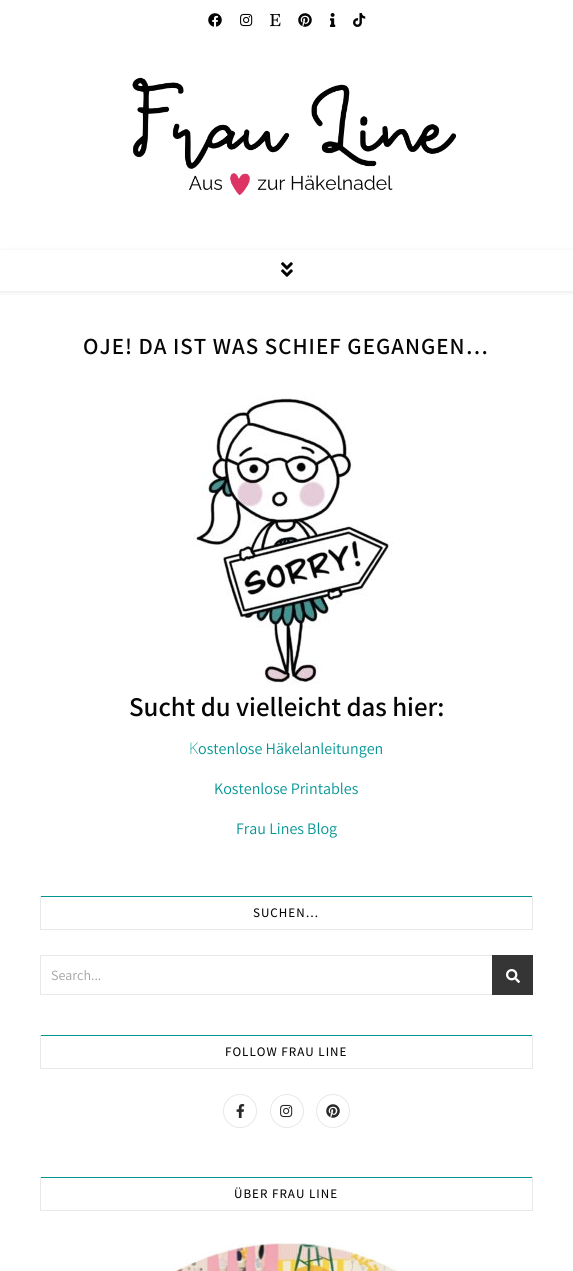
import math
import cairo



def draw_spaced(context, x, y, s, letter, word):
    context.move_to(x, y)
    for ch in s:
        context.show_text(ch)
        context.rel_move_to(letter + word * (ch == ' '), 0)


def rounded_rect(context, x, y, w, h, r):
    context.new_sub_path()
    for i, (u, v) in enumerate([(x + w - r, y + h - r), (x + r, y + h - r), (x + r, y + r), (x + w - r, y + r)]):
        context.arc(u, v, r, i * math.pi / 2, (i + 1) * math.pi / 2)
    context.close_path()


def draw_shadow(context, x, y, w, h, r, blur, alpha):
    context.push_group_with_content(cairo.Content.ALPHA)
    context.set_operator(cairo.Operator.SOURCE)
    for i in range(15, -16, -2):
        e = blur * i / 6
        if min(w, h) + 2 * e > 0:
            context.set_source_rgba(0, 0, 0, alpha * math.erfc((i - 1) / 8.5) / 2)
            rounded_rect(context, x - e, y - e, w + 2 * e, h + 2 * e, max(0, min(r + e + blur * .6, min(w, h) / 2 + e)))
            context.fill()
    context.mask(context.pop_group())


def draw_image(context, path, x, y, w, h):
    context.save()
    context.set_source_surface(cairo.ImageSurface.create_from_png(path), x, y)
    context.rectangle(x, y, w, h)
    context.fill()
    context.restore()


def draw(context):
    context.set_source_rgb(1, 1, 1)
    context.paint()
    draw_image(context, "images/1.png", 208, 13, 14, 14)
    draw_image(context, "images/2.png", 240, 13, 13, 14)
    draw_image(context, "images/3.png", 270, 13, 11, 14)
    draw_image(context, "images/4.png", 298, 13, 14, 14)
    draw_image(context, "images/5.png", 330, 13, 6, 14)
    draw_image(context, "images/6.png", 353, 13, 13, 14)
    draw_image(context, "images/7.png", 132, 77, 325, 119)
    context.save()
    context.set_fill_rule(cairo.FillRule.EVEN_ODD)
    context.new_path()
    context.move_to(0, 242)
    context.line_to(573, 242)
    context.line_to(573, 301)
    context.line_to(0, 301)
    context.close_path()
    context.move_to(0, 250)
    context.line_to(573, 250)
    context.line_to(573, 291)
    context.line_to(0, 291)
    context.close_path()
    context.clip()
    context.set_source_rgb(3 / 255, 3 / 255, 3 / 255)
    draw_shadow(context, 0, 251, 573, 41, 0, 2.5, 0.1)
    context.restore()
    draw_image(context, "images/8.png", 281, 262, 12, 15)
    draw_image(context, "images/9.png", 193, 396, 200, 288)
    context.set_source_rgb(3 / 255, 149 / 255, 148 / 255)
    context.rectangle(40, 896, 493, 1)
    context.fill()
    context.set_source_rgb(232 / 255, 232 / 255, 232 / 255)
    context.rectangle(532, 896, 1, 34)
    context.fill()
    context.rectangle(40, 929, 493, 1)
    context.fill()
    context.rectangle(40, 896, 1, 34)
    context.fill()
    context.rectangle(40.5, 955.5, 492, 39)
    context.set_line_width(1)
    context.stroke()
    context.set_source_rgb(53 / 255, 53 / 255, 53 / 255)
    context.rectangle(492, 955, 41, 40)
    context.fill()
    draw_image(context, "images/10.png", 506, 969, 14, 14)
    context.set_source_rgb(3 / 255, 149 / 255, 148 / 255)
    context.rectangle(40, 1035, 493, 1)
    context.fill()
    context.set_source_rgb(232 / 255, 232 / 255, 232 / 255)
    context.rectangle(532, 1035, 1, 34)
    context.fill()
    context.rectangle(40, 1068, 493, 1)
    context.fill()
    context.rectangle(40, 1035, 1, 34)
    context.fill()
    context.arc(240, 1111, 16.5, 0, 2 * math.pi)
    context.stroke()
    draw_image(context, "images/11.png", 236, 1104, 9, 14)
    context.arc(287, 1111, 16.5, 0, 2 * math.pi)
    context.stroke()
    draw_image(context, "images/12.png", 280, 1104, 13, 14)
    context.arc(333, 1111, 16.5, 0, 2 * math.pi)
    context.stroke()
    draw_image(context, "images/13.png", 326, 1104, 14, 14)
    context.set_source_rgb(3 / 255, 149 / 255, 148 / 255)
    context.rectangle(40, 1177, 493, 1)
    context.fill()
    context.set_source_rgb(232 / 255, 232 / 255, 232 / 255)
    context.rectangle(532, 1177, 1, 34)
    context.fill()
    context.rectangle(40, 1210, 493, 1)
    context.fill()
    context.rectangle(40, 1177, 1, 34)
    context.fill()
    draw_image(context, "images/14.png", 173, 1243, 225, 28)
    context.select_font_face("Assistant SemiBold")
    context.set_font_size(23)
    context.set_source_rgb(6 / 255, 6 / 255, 6 / 255)
    draw_spaced(context, 83, 354, "OJE! DA IST WAS SCHIEF GEGANGEN…", 1, 0)
    context.set_font_size(27)
    context.move_to(129, 716)
    context.show_text("Sucht du vielleicht das hier:")
    context.select_font_face("Noto Sans ExtraLight")
    context.set_font_size(16)
    context.set_source_rgb(3 / 255, 149 / 255, 148 / 255)
    context.move_to(189, 754)
    context.show_text("K")
    context.select_font_face("Assistant")
    context.move_to(198, 754)
    context.show_text("ostenlose Häkelanleitungen")
    context.move_to(214, 794)
    context.show_text("Kostenlose Printables")
    context.move_to(236, 834)
    context.show_text("Frau Lines Blog")
    context.select_font_face("Assistant Medium")
    context.set_font_size(13)
    context.set_source_rgb(6 / 255, 6 / 255, 6 / 255)
    draw_spaced(context, 253, 917, "SUCHEN…", 1, 0)
    context.select_font_face("Assistant")
    context.set_font_size(14)
    context.set_source_rgb(162 / 255, 162 / 255, 162 / 255)
    context.move_to(51, 980)
    context.show_text("Search...")
    context.select_font_face("Assistant Medium")
    context.set_font_size(13)
    context.set_source_rgb(6 / 255, 6 / 255, 6 / 255)
    draw_spaced(context, 225, 1056, "FOLLOW FRAU LINE", 1, 0)
    draw_spaced(context, 234, 1198, "ÜBER FRAU LINE", 1, 0)


surface = cairo.ImageSurface(cairo.Format.RGB24, 573, 1271)
context = cairo.Context(surface)
options = cairo.FontOptions()
options.set_hint_metrics(cairo.HintMetrics.OFF)
options.set_hint_style(cairo.HintStyle.NONE)
context.set_font_options(options)
context.set_miter_limit(4)
draw(context)
surface.write_to_png("out.png")
